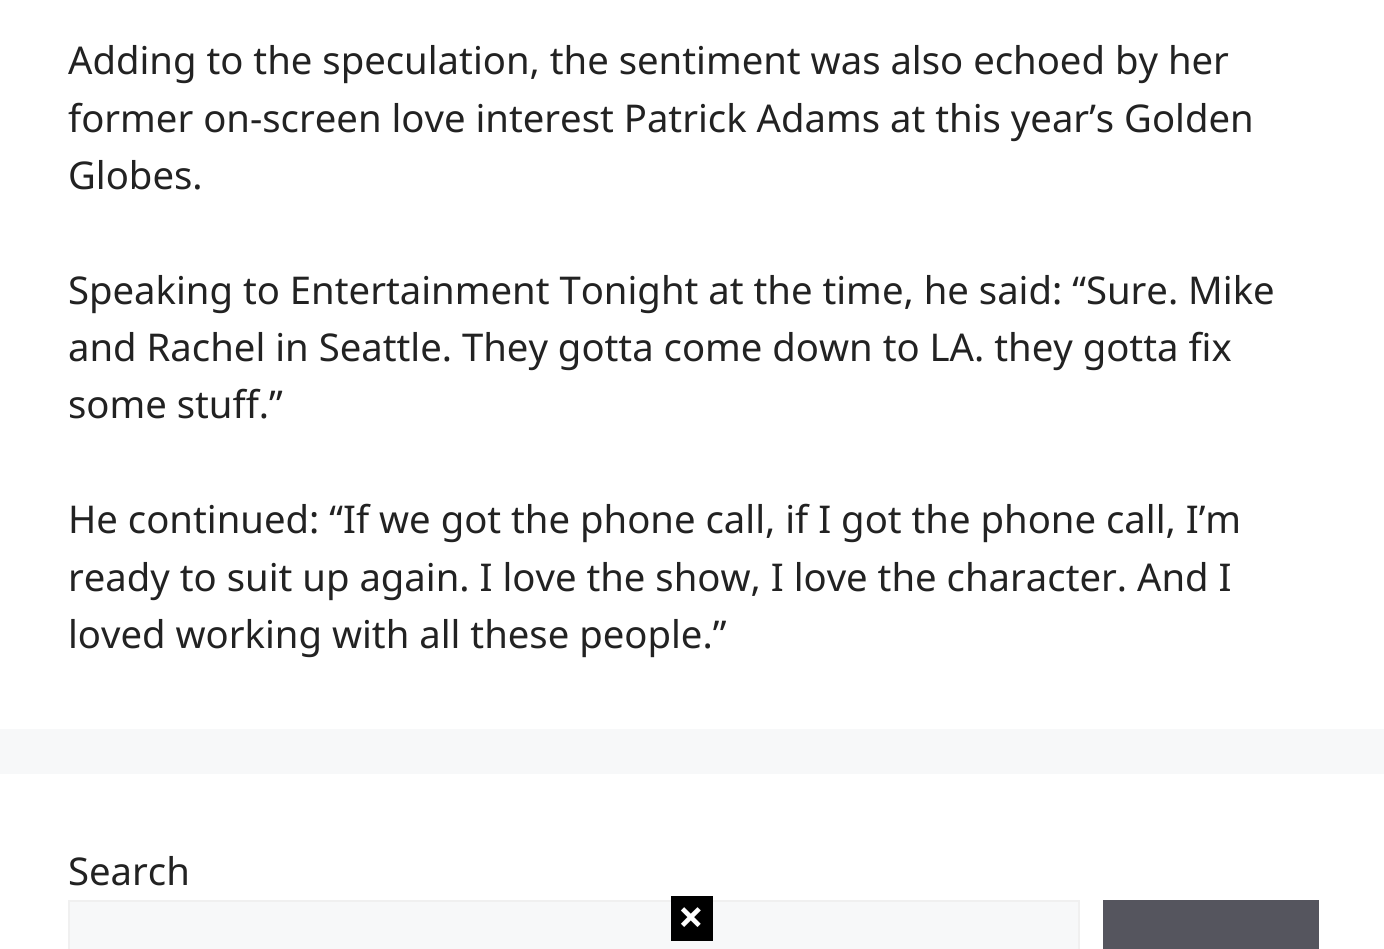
import math
import cairo



def draw(context):
    context.set_source_rgb(247 / 255, 248 / 255, 249 / 255)
    context.paint()
    context.set_source_rgb(1, 1, 1)
    context.rectangle(0, 0, 1384, 729)
    context.fill()
    context.rectangle(0, 774, 1384, 175)
    context.fill()
    context.set_source_rgb(247 / 255, 248 / 255, 249 / 255)
    context.rectangle(69, 901, 1010, 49)
    context.fill_preserve()
    context.set_source_rgb(240 / 255, 240 / 255, 240 / 255)
    context.stroke()
    context.set_source_rgb(85 / 255, 85 / 255, 94 / 255)
    context.rectangle(1103, 900, 216, 49)
    context.fill()
    context.set_source_rgb(0, 0, 0)
    context.rectangle(671, 896, 42, 45)
    context.fill()
    context.select_font_face("Noto Sans")
    context.set_font_size(38.25)
    context.set_source_rgb(34 / 255, 34 / 255, 34 / 255)
    context.move_to(68, 74)
    context.show_text("Adding to the speculation, the sentiment was also echoed by her")
    context.move_to(68, 132)
    context.show_text("former on-screen love interest Patrick Adams at this year’s Golden")
    context.move_to(68, 189)
    context.show_text("Globes.")
    context.move_to(68, 304)
    context.show_text("Speaking to Entertainment Tonight at the time, he said: “Sure. Mike")
    context.move_to(68, 361)
    context.show_text("and Rachel in Seattle. They gotta come down to LA. they gotta fix")
    context.move_to(68, 418)
    context.show_text("some stuff.”")
    context.move_to(68, 533)
    context.show_text("He continued: “If we got the phone call, if I got the phone call, I’m")
    context.move_to(68, 591)
    context.show_text("ready to suit up again. I love the show, I love the character. And I")
    context.move_to(68, 648)
    context.show_text("loved working with all these people.”")
    context.move_to(68, 885)
    context.show_text("Search")
    context.select_font_face("Noto Sans", cairo.FontSlant.NORMAL, cairo.FontWeight.BOLD)
    context.set_font_size(45)
    context.set_source_rgb(1, 1, 1)
    context.move_to(678, 933)
    context.show_text("×")


surface = cairo.ImageSurface(cairo.Format.RGB24, 1384, 949)
context = cairo.Context(surface)
options = cairo.FontOptions()
options.set_hint_metrics(cairo.HintMetrics.OFF)
options.set_hint_style(cairo.HintStyle.NONE)
context.set_font_options(options)
context.set_miter_limit(4)
draw(context)
surface.write_to_png("out.png")
